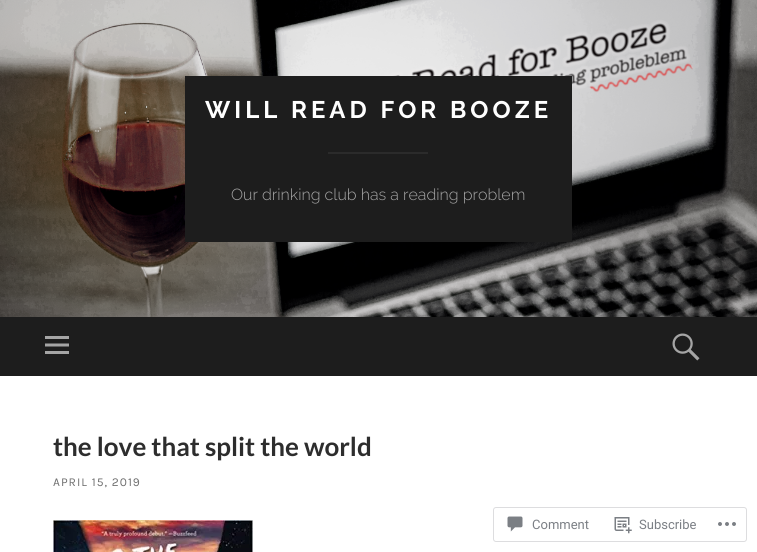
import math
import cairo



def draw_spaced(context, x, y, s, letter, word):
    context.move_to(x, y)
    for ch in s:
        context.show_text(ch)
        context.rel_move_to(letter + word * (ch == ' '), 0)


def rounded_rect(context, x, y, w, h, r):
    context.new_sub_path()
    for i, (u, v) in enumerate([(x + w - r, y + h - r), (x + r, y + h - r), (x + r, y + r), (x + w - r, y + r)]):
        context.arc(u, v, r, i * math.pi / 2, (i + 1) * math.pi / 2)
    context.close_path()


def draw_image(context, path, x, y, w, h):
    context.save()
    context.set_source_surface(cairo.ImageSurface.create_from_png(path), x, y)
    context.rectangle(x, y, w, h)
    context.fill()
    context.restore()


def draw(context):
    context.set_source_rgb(1, 1, 1)
    context.paint()
    draw_image(context, "images/1.png", 0, 0, 757, 317)
    context.set_source_rgb(29 / 255, 29 / 255, 29 / 255)
    context.rectangle(185, 76, 387, 166)
    context.fill()
    context.set_source_rgb(43 / 255, 43 / 255, 43 / 255)
    context.rectangle(328, 152, 100, 2)
    context.fill()
    context.set_source_rgb(29 / 255, 29 / 255, 29 / 255)
    context.rectangle(0, 317, 757, 59)
    context.fill()
    draw_image(context, "images/2.png", 45, 336, 24, 18)
    draw_image(context, "images/3.png", 672, 333, 28, 28)
    draw_image(context, "images/4.png", 53, 520, 200, 32)
    rounded_rect(context, 493.5, 507.5, 253, 34, 2.5)
    context.set_source_rgb(221 / 255, 221 / 255, 223 / 255)
    context.set_line_width(1)
    context.stroke()
    draw_image(context, "images/5.png", 507, 516, 16, 16)
    draw_image(context, "images/6.png", 614, 517, 18, 17)
    draw_image(context, "images/7.png", 718, 522, 18, 4)
    context.select_font_face("Raleway", cairo.FontSlant.NORMAL, cairo.FontWeight.BOLD)
    context.set_font_size(24)
    context.set_source_rgb(1, 1, 1)
    draw_spaced(context, 205, 118, "WILL READ FOR BOOZE", 4, 0)
    context.select_font_face("Raleway Light")
    context.set_font_size(16)
    context.set_source_rgb(165 / 255, 165 / 255, 165 / 255)
    context.move_to(231, 200)
    context.show_text("Our drinking club has a reading problem")
    context.select_font_face("Lato", cairo.FontSlant.NORMAL, cairo.FontWeight.BOLD)
    context.set_font_size(26)
    context.set_source_rgb(45 / 255, 45 / 255, 45 / 255)
    context.move_to(53, 456)
    context.show_text("the love that split the world")
    context.select_font_face("Karla")
    context.set_font_size(12)
    context.set_source_rgb(109 / 255, 109 / 255, 109 / 255)
    draw_spaced(context, 53, 486, "APRIL 15, 2019", 1, 0)
    context.select_font_face("Roboto")
    context.set_font_size(13)
    context.set_source_rgb(123 / 255, 127 / 255, 133 / 255)
    context.move_to(532, 529)
    context.show_text("Comment")
    context.move_to(639, 529)
    context.show_text("Subscribe")


surface = cairo.ImageSurface(cairo.Format.RGB24, 757, 552)
context = cairo.Context(surface)
options = cairo.FontOptions()
options.set_hint_metrics(cairo.HintMetrics.OFF)
options.set_hint_style(cairo.HintStyle.NONE)
context.set_font_options(options)
context.set_miter_limit(4)
draw(context)
surface.write_to_png("out.png")
